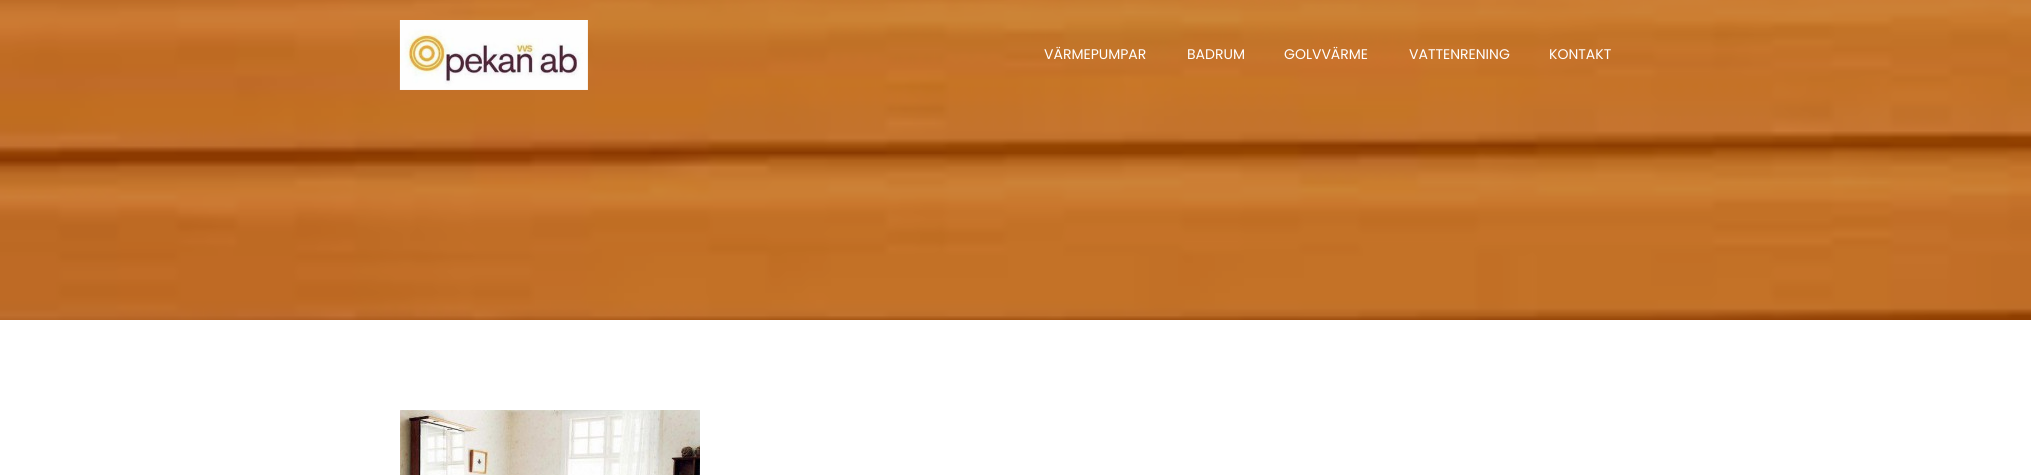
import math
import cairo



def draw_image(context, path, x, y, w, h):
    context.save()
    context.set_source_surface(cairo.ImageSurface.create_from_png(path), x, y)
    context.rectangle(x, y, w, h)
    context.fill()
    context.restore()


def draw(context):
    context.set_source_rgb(1, 1, 1)
    context.paint()
    draw_image(context, "images/1.png", 0, 0, 2031, 320)
    draw_image(context, "images/2.png", 399, 20, 189, 70)
    draw_image(context, "images/3.png", 400, 410, 300, 65)
    context.select_font_face("Poppins")
    context.set_font_size(14)
    context.set_source_rgb(1, 1, 1)
    context.move_to(1044, 59)
    context.show_text("VÄRMEPUMPAR")
    context.move_to(1187, 59)
    context.show_text("BADRUM")
    context.move_to(1284, 59)
    context.show_text("GOLVVÄRME")
    context.move_to(1409, 59)
    context.show_text("VATTENRENING")
    context.move_to(1549, 59)
    context.show_text("KONTAKT")


surface = cairo.ImageSurface(cairo.Format.RGB24, 2031, 475)
context = cairo.Context(surface)
options = cairo.FontOptions()
options.set_hint_metrics(cairo.HintMetrics.OFF)
options.set_hint_style(cairo.HintStyle.NONE)
context.set_font_options(options)
context.set_miter_limit(4)
draw(context)
surface.write_to_png("out.png")
